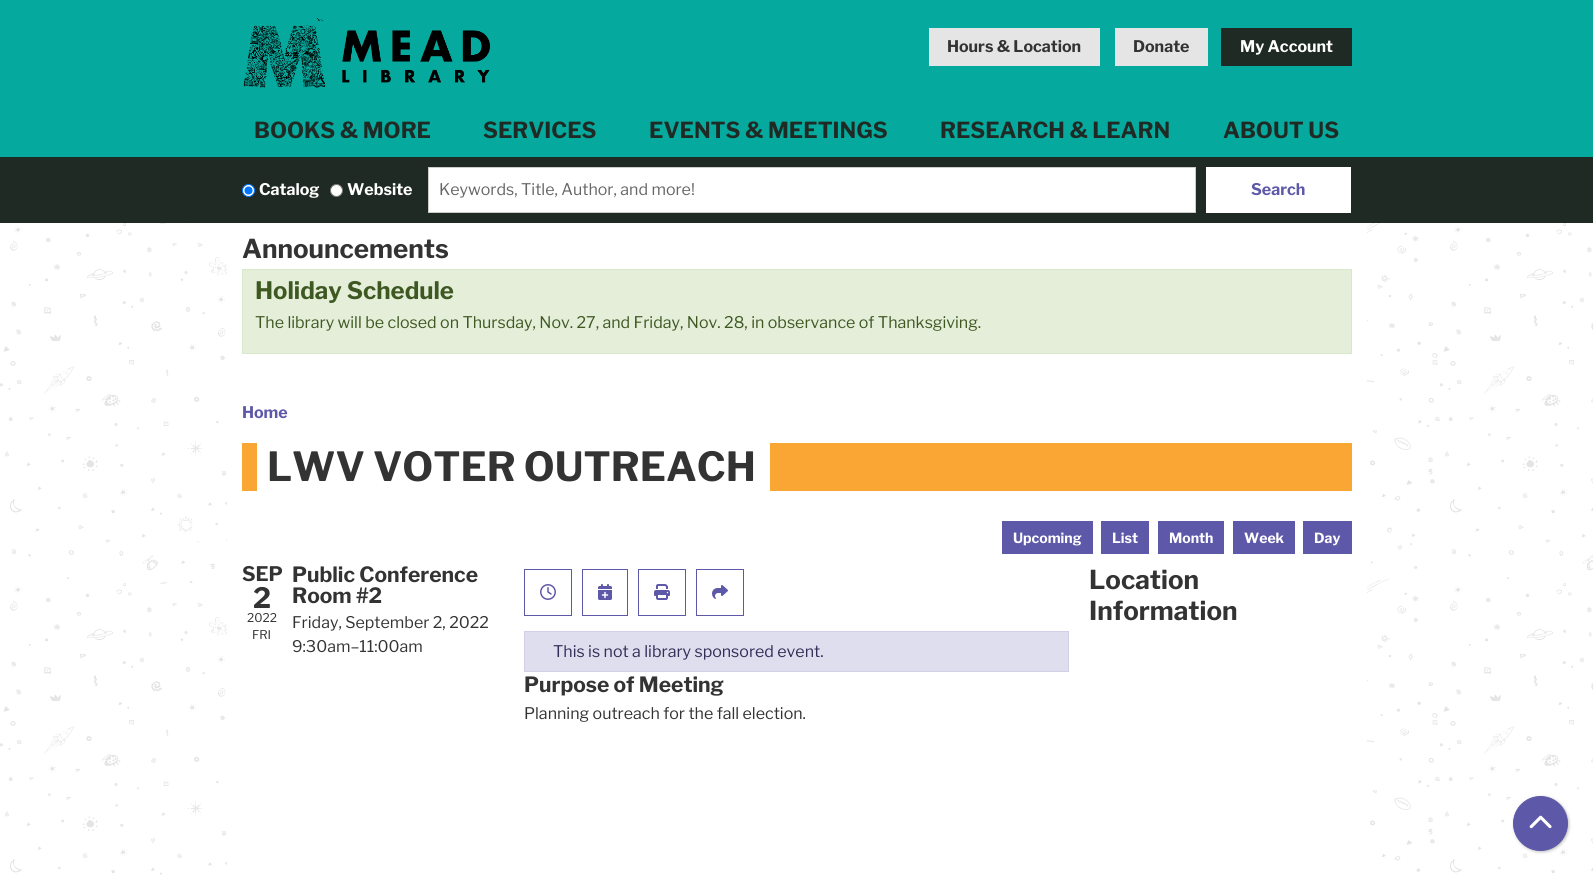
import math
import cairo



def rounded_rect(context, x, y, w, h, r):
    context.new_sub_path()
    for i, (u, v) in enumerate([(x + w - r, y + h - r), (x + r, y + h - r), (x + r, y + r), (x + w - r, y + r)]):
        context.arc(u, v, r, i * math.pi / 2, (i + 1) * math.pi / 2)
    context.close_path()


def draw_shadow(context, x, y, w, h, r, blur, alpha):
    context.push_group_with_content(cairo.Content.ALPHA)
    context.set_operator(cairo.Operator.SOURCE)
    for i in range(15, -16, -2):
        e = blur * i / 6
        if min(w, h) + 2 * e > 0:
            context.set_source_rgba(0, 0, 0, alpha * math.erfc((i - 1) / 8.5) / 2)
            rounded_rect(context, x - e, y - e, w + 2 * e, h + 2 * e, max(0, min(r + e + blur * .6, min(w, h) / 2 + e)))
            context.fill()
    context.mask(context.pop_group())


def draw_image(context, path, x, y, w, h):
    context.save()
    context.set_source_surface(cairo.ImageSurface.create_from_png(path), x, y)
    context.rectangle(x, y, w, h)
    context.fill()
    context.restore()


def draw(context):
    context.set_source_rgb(1, 1, 1)
    context.paint()
    draw_image(context, "images/1.png", 0, 223, 1593, 652)
    context.set_source_rgb(6 / 255, 169 / 255, 157 / 255)
    context.rectangle(0, 0, 1593, 157)
    context.fill()
    draw_image(context, "images/2.png", 243, 17, 248, 71)
    context.set_source_rgb(229 / 255, 229 / 255, 229 / 255)
    context.rectangle(929, 28, 171, 38)
    context.fill()
    context.rectangle(1115, 28, 93, 38)
    context.fill()
    context.set_source_rgb(32 / 255, 42 / 255, 37 / 255)
    context.rectangle(1221, 28, 131, 38)
    context.fill()
    context.rectangle(0, 157, 1593, 66)
    context.fill()
    context.set_source_rgb(1, 1, 1)
    context.arc(248.5, 190.5, 6, 0, 2 * math.pi)
    context.fill_preserve()
    context.set_source_rgb(0, 117 / 255, 1)
    context.set_line_width(1)
    context.stroke()
    context.arc(248.5, 190.5, 4, 0, 2 * math.pi)
    context.fill()
    context.set_source_rgb(1, 1, 1)
    context.arc(336.5, 190.5, 6, 0, 2 * math.pi)
    context.fill_preserve()
    context.set_source_rgb(118 / 255, 118 / 255, 118 / 255)
    context.stroke()
    context.set_source_rgb(1, 1, 1)
    context.rectangle(428.5, 167.5, 767, 45)
    context.fill_preserve()
    context.set_source_rgb(204 / 255, 204 / 255, 204 / 255)
    context.stroke()
    context.set_source_rgb(1, 1, 1)
    context.rectangle(1206, 167, 145, 46)
    context.fill()
    context.rectangle(227, 223, 1140, 652)
    context.fill()
    context.set_source_rgb(228 / 255, 238 / 255, 217 / 255)
    context.rectangle(242.5, 269.5, 1109, 84)
    context.fill_preserve()
    context.set_source_rgb(217 / 255, 231 / 255, 202 / 255)
    context.stroke()
    context.set_source_rgb(250 / 255, 166 / 255, 53 / 255)
    context.rectangle(242, 443, 1110, 48)
    context.fill()
    context.set_source_rgb(1, 1, 1)
    context.rectangle(257, 443, 513, 48)
    context.fill()
    context.set_source_rgb(94 / 255, 88 / 255, 168 / 255)
    context.rectangle(1002, 521, 91, 33)
    context.fill()
    context.rectangle(1101, 521, 48, 33)
    context.fill()
    context.rectangle(1158, 521, 66, 33)
    context.fill()
    context.rectangle(1233, 521, 62, 33)
    context.fill()
    context.rectangle(1303, 521, 49, 33)
    context.fill()
    context.rectangle(524.5, 569.5, 47, 46)
    context.stroke()
    draw_image(context, "images/3.png", 540, 584, 16, 16)
    context.rectangle(582.5, 569.5, 45, 46)
    context.stroke()
    draw_image(context, "images/4.png", 598, 584, 14, 16)
    context.rectangle(638.5, 569.5, 47, 46)
    context.stroke()
    draw_image(context, "images/5.png", 654, 584, 16, 16)
    context.rectangle(696.5, 569.5, 47, 46)
    context.stroke()
    draw_image(context, "images/6.png", 712, 585, 16, 14)
    context.set_source_rgb(223 / 255, 222 / 255, 238 / 255)
    context.rectangle(524.5, 631.5, 544, 40)
    context.fill_preserve()
    context.set_source_rgb(210 / 255, 208 / 255, 231 / 255)
    context.stroke()
    context.set_source_rgb(0, 0, 0)
    draw_shadow(context, 1514, 797, 55, 55, 27.5, 1.5, 0.25)
    context.set_source_rgb(94 / 255, 88 / 255, 168 / 255)
    context.arc(1540.5, 823.5, 27, 0, 2 * math.pi)
    context.fill_preserve()
    context.stroke()
    draw_image(context, "images/7.png", 1529, 815, 23, 14)
    context.select_font_face("Libre Franklin", cairo.FontSlant.NORMAL, cairo.FontWeight.BOLD)
    context.set_font_size(16)
    context.set_source_rgb(51 / 255, 51 / 255, 51 / 255)
    context.move_to(947, 52)
    context.show_text("Hours & Location")
    context.move_to(1133, 52)
    context.show_text("Donate")
    context.set_source_rgb(1, 1, 1)
    context.move_to(1240, 52)
    context.show_text("My Account")
    context.set_font_size(22)
    context.set_source_rgb(32 / 255, 42 / 255, 37 / 255)
    context.move_to(254, 138)
    context.show_text("BOOKS & MORE")
    context.move_to(483, 138)
    context.show_text("SERVICES")
    context.move_to(649, 138)
    context.show_text("EVENTS & MEETINGS")
    context.move_to(940, 138)
    context.show_text("RESEARCH & LEARN")
    context.move_to(1223, 138)
    context.show_text("ABOUT US")
    context.set_font_size(16)
    context.set_source_rgb(1, 1, 1)
    context.move_to(259, 195)
    context.show_text("Catalog")
    context.move_to(347, 195)
    context.show_text("Website")
    context.select_font_face("Libre Franklin")
    context.set_source_rgb(102 / 255, 102 / 255, 102 / 255)
    context.move_to(439, 195)
    context.show_text("Keywords, Title, Author, and more!")
    context.select_font_face("Libre Franklin", cairo.FontSlant.NORMAL, cairo.FontWeight.BOLD)
    context.set_source_rgb(94 / 255, 88 / 255, 168 / 255)
    context.move_to(1251, 195)
    context.show_text("Search")
    context.set_font_size(26)
    context.set_source_rgb(51 / 255, 51 / 255, 51 / 255)
    context.move_to(242, 258)
    context.show_text("Announcements")
    context.set_font_size(24)
    context.set_source_rgb(62 / 255, 88 / 255, 34 / 255)
    context.move_to(255, 299)
    context.show_text("Holiday Schedule")
    context.select_font_face("Libre Franklin")
    context.set_font_size(16)
    context.move_to(255, 328)
    context.show_text("The library will be closed on Thursday, Nov. 27, and Friday, Nov. 28, in observance of Thanksgiving.")
    context.select_font_face("Libre Franklin", cairo.FontSlant.NORMAL, cairo.FontWeight.BOLD)
    context.set_source_rgb(94 / 255, 88 / 255, 168 / 255)
    context.move_to(242, 418)
    context.show_text("Home")
    context.set_font_size(40)
    context.set_source_rgb(51 / 255, 51 / 255, 51 / 255)
    context.move_to(267, 481)
    context.show_text("LWV VOTER OUTREACH")
    context.set_font_size(14)
    context.set_source_rgb(1, 1, 1)
    context.move_to(1013, 543)
    context.show_text("Upcoming")
    context.move_to(1112, 543)
    context.show_text("List")
    context.move_to(1169, 543)
    context.show_text("Month")
    context.move_to(1244, 543)
    context.show_text("Week")
    context.move_to(1314, 543)
    context.show_text("Day")
    context.set_font_size(20)
    context.set_source_rgb(51 / 255, 51 / 255, 51 / 255)
    context.move_to(242, 581)
    context.show_text("SEP")
    context.set_font_size(28)
    context.move_to(253, 608)
    context.show_text("2")
    context.select_font_face("Libre Franklin")
    context.set_font_size(12)
    context.move_to(247, 622)
    context.show_text("2022")
    context.move_to(252, 639)
    context.show_text("FRI")
    context.select_font_face("Libre Franklin", cairo.FontSlant.NORMAL, cairo.FontWeight.BOLD)
    context.set_font_size(21)
    context.move_to(292, 582)
    context.show_text("Public Conference")
    context.move_to(292, 603)
    context.show_text("Room #2")
    context.select_font_face("Libre Franklin")
    context.set_font_size(16)
    context.move_to(292, 628)
    context.show_text("Friday, September 2, 2022")
    context.move_to(292, 652)
    context.show_text("9:30am–11:00am")
    context.select_font_face("Libre Franklin", cairo.FontSlant.NORMAL, cairo.FontWeight.BOLD)
    context.set_font_size(26)
    context.move_to(1089, 589)
    context.show_text("Location")
    context.move_to(1089, 620)
    context.show_text("Information")
    context.select_font_face("Libre Franklin")
    context.set_font_size(16)
    context.set_source_rgb(49 / 255, 46 / 255, 87 / 255)
    context.move_to(553, 657)
    context.show_text("This is not a library sponsored event.")
    context.select_font_face("Libre Franklin", cairo.FontSlant.NORMAL, cairo.FontWeight.BOLD)
    context.set_font_size(21)
    context.set_source_rgb(51 / 255, 51 / 255, 51 / 255)
    context.move_to(524, 692)
    context.show_text("Purpose of Meeting")
    context.select_font_face("Libre Franklin")
    context.set_font_size(16)
    context.move_to(524, 719)
    context.show_text("Planning outreach for the fall election.")


surface = cairo.ImageSurface(cairo.Format.RGB24, 1593, 876)
context = cairo.Context(surface)
options = cairo.FontOptions()
options.set_hint_metrics(cairo.HintMetrics.OFF)
options.set_hint_style(cairo.HintStyle.NONE)
context.set_font_options(options)
context.set_miter_limit(4)
draw(context)
surface.write_to_png("out.png")
